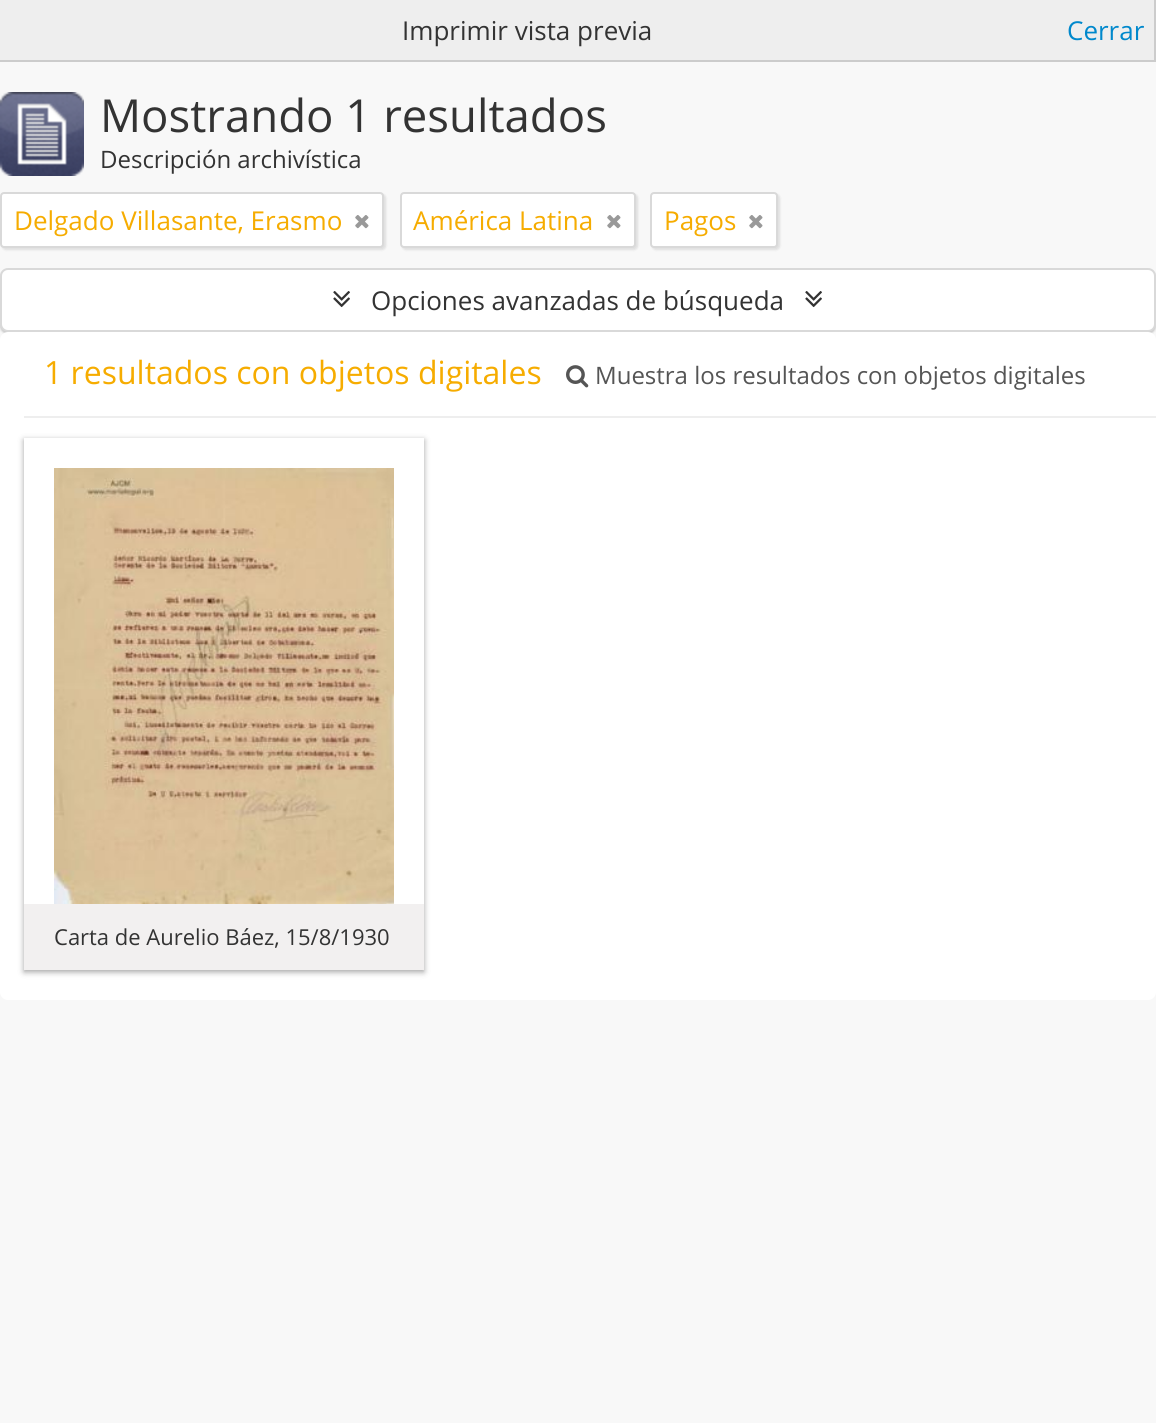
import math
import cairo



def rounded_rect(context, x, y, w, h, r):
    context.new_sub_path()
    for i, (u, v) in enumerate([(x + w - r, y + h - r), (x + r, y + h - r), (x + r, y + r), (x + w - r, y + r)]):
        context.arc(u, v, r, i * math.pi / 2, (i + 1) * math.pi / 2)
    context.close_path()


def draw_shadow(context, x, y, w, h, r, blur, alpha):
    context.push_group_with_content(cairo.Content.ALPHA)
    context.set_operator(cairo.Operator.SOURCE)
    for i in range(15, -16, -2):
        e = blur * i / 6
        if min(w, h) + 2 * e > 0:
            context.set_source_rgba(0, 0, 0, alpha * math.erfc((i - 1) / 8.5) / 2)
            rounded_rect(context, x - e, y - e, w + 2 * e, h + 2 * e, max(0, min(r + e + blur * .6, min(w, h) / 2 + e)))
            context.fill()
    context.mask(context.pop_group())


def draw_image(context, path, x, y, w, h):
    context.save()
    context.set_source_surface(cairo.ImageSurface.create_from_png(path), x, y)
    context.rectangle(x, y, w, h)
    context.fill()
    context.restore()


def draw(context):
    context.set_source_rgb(248 / 255, 248 / 255, 248 / 255)
    context.paint()
    context.set_source_rgb(238 / 255, 238 / 255, 238 / 255)
    context.rectangle(0, 0, 1154, 60)
    context.fill()
    context.set_source_rgb(204 / 255, 204 / 255, 204 / 255)
    context.rectangle(1154, 0, 2, 62)
    context.fill()
    context.rectangle(0, 60, 1156, 2)
    context.fill()
    draw_image(context, "images/1.png", 0, 92, 84, 84)
    context.set_source_rgb(0, 0, 0)
    draw_shadow(context, 2, 194, 384, 56, 4, 1, 0.1)
    context.set_source_rgb(1, 1, 1)
    rounded_rect(context, 1, 193, 382, 54, 3)
    context.fill_preserve()
    context.set_source_rgb(217 / 255, 217 / 255, 217 / 255)
    context.stroke()
    draw_image(context, "images/2.png", 355, 215, 14, 14)
    context.set_source_rgb(0, 0, 0)
    draw_shadow(context, 402, 194, 236, 56, 4, 1, 0.1)
    context.set_source_rgb(1, 1, 1)
    rounded_rect(context, 401, 193, 234, 54, 3)
    context.fill_preserve()
    context.set_source_rgb(217 / 255, 217 / 255, 217 / 255)
    context.stroke()
    draw_image(context, "images/2.png", 607, 215, 14, 14)
    context.set_source_rgb(0, 0, 0)
    draw_shadow(context, 652, 194, 128, 56, 4, 1, 0.1)
    context.set_source_rgb(1, 1, 1)
    rounded_rect(context, 651, 193, 126, 54, 3)
    context.fill_preserve()
    context.set_source_rgb(217 / 255, 217 / 255, 217 / 255)
    context.stroke()
    draw_image(context, "images/2.png", 749, 215, 14, 14)
    context.set_source_rgb(0, 0, 0)
    draw_shadow(context, 0, 270, 1156, 64, 8, 1, 0.2)
    context.set_source_rgb(1, 1, 1)
    rounded_rect(context, 1, 269, 1154, 62, 7)
    context.fill_preserve()
    context.set_source_rgb(217 / 255, 217 / 255, 217 / 255)
    context.stroke()
    draw_image(context, "images/3.png", 333, 291, 17, 17)
    draw_image(context, "images/3.png", 805, 291, 17, 17)
    context.set_source_rgb(1, 1, 1)
    rounded_rect(context, 0, 332, 1156, 668, 8)
    context.fill()
    context.set_source_rgb(238 / 255, 238 / 255, 238 / 255)
    context.rectangle(24, 416, 1132, 2)
    context.fill()
    draw_image(context, "images/4.png", 566, 365, 23, 23)
    context.save()
    context.set_fill_rule(cairo.FillRule.EVEN_ODD)
    context.new_path()
    context.move_to(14, 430)
    context.line_to(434, 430)
    context.line_to(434, 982)
    context.line_to(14, 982)
    context.close_path()
    context.move_to(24, 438)
    context.line_to(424, 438)
    context.line_to(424, 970)
    context.line_to(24, 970)
    context.close_path()
    context.clip()
    context.set_source_rgb(25 / 255, 25 / 255, 25 / 255)
    draw_shadow(context, 24, 440, 400, 532, 0, 3, 0.4)
    context.restore()
    draw_image(context, "images/5.png", 54, 468, 340, 436)
    context.set_source_rgb(242 / 255, 240 / 255, 240 / 255)
    context.rectangle(24, 904, 400, 66)
    context.fill()
    context.select_font_face("Open Sans")
    context.set_font_size(26)
    context.set_source_rgb(51 / 255, 51 / 255, 51 / 255)
    context.move_to(402, 40)
    context.show_text("Imprimir vista previa")
    context.set_source_rgb(0, 136 / 255, 204 / 255)
    context.move_to(1067, 40)
    context.show_text("Cerrar")
    context.set_font_size(45.5)
    context.set_source_rgb(51 / 255, 51 / 255, 51 / 255)
    context.move_to(100, 132)
    context.show_text("Mostrando 1 resultados")
    context.set_font_size(24)
    context.move_to(100, 168)
    context.show_text("Descripción archivística")
    context.set_font_size(26)
    context.set_source_rgb(246 / 255, 172 / 255, 0)
    context.move_to(14, 230)
    context.show_text("Delgado Villasante, Erasmo")
    context.move_to(413, 230)
    context.show_text("América Latina")
    context.move_to(664, 230)
    context.show_text("Pagos")
    context.set_source_rgb(51 / 255, 51 / 255, 51 / 255)
    context.move_to(371, 310)
    context.show_text("Opciones avanzadas de búsqueda")
    context.set_font_size(32)
    context.set_source_rgb(246 / 255, 172 / 255, 0)
    context.move_to(44, 384)
    context.show_text("1 resultados con objetos digitales")
    context.set_font_size(24)
    context.set_source_rgb(85 / 255, 85 / 255, 85 / 255)
    context.move_to(595, 384)
    context.show_text("Muestra los resultados con objetos digitales")
    context.set_font_size(22)
    context.set_source_rgb(51 / 255, 51 / 255, 51 / 255)
    context.move_to(54, 945)
    context.show_text("Carta de Aurelio Báez, 15/8/1930")


surface = cairo.ImageSurface(cairo.Format.RGB24, 1156, 1423)
context = cairo.Context(surface)
options = cairo.FontOptions()
options.set_hint_metrics(cairo.HintMetrics.OFF)
options.set_hint_style(cairo.HintStyle.NONE)
context.set_font_options(options)
context.set_miter_limit(4)
draw(context)
surface.write_to_png("out.png")
